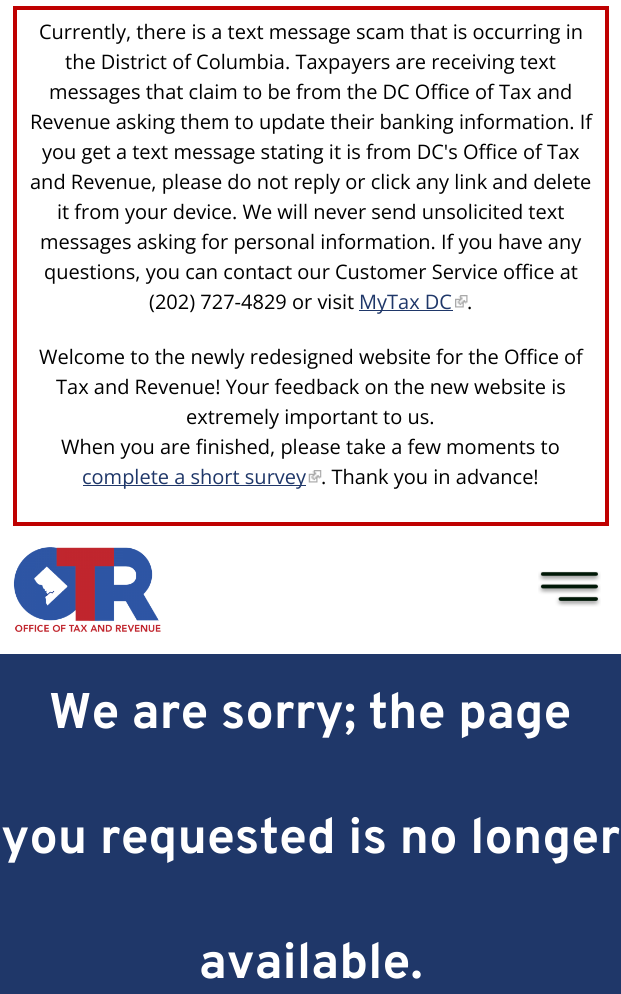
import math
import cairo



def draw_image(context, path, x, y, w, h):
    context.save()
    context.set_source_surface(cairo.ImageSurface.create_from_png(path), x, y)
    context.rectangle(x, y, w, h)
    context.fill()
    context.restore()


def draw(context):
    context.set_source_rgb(1, 1, 1)
    context.paint()
    context.rectangle(15, 8, 592, 516)
    context.set_source_rgb(191 / 255, 0, 0)
    context.set_line_width(4)
    context.stroke()
    context.set_source_rgb(31 / 255, 55 / 255, 105 / 255)
    context.rectangle(359, 310, 94, 1)
    context.fill()
    draw_image(context, "images/1.png", 455, 295, 13, 13)
    context.rectangle(83, 485, 223, 1)
    context.fill()
    draw_image(context, "images/2.png", 308, 470, 14, 13)
    draw_image(context, "images/3.png", 13, 547, 148, 85)
    draw_image(context, "images/4.png", 538, 571, 63, 36)
    context.rectangle(0, 654, 621, 340)
    context.fill()
    context.select_font_face("Open Sans")
    context.set_font_size(20)
    context.set_source_rgb(0, 0, 0)
    context.move_to(39, 39)
    context.show_text("Currently, there is a text message scam that is occurring in")
    context.move_to(65, 69)
    context.show_text("the District of Columbia. Taxpayers are receiving text")
    context.move_to(49, 99)
    context.show_text("messages that claim to be from the DC Office of Tax and")
    context.move_to(30, 129)
    context.show_text("Revenue asking them to update their banking information. If")
    context.move_to(42, 159)
    context.show_text("you get a text message stating it is from DC's Office of Tax")
    context.move_to(30, 189)
    context.show_text("and Revenue, please do not reply or click any link and delete")
    context.move_to(57, 219)
    context.show_text("it from your device. We will never send unsolicited text")
    context.move_to(40, 249)
    context.show_text("messages asking for personal information. If you have any")
    context.move_to(44, 279)
    context.show_text("questions, you can contact our Customer Service office at")
    context.move_to(149, 309)
    context.show_text("(202) 727-4829 or visit")
    context.set_source_rgb(31 / 255, 55 / 255, 105 / 255)
    context.move_to(359, 309)
    context.show_text("MyTax DC")
    context.set_source_rgb(0, 0, 0)
    context.move_to(467, 309)
    context.show_text(".")
    context.move_to(39, 364)
    context.show_text("Welcome to the newly redesigned website for the Office of")
    context.move_to(56, 394)
    context.show_text("Tax and Revenue! Your feedback on the new website is")
    context.move_to(186, 424)
    context.show_text("extremely important to us.")
    context.move_to(61, 454)
    context.show_text("When you are finished, please take a few moments to")
    context.set_source_rgb(31 / 255, 55 / 255, 105 / 255)
    context.move_to(82, 484)
    context.show_text("complete a short survey")
    context.set_source_rgb(0, 0, 0)
    context.move_to(321, 484)
    context.show_text(". Thank you in advance!")
    context.select_font_face("Overpass", cairo.FontSlant.NORMAL, cairo.FontWeight.BOLD)
    context.set_font_size(50)
    context.set_source_rgb(1, 1, 1)
    context.move_to(49, 728)
    context.show_text("We are sorry; the page")
    context.move_to(1, 853)
    context.show_text("you requested is no longer")
    context.move_to(199, 978)
    context.show_text("available.")


surface = cairo.ImageSurface(cairo.Format.RGB24, 621, 994)
context = cairo.Context(surface)
options = cairo.FontOptions()
options.set_hint_metrics(cairo.HintMetrics.OFF)
options.set_hint_style(cairo.HintStyle.NONE)
context.set_font_options(options)
context.set_miter_limit(4)
draw(context)
surface.write_to_png("out.png")
